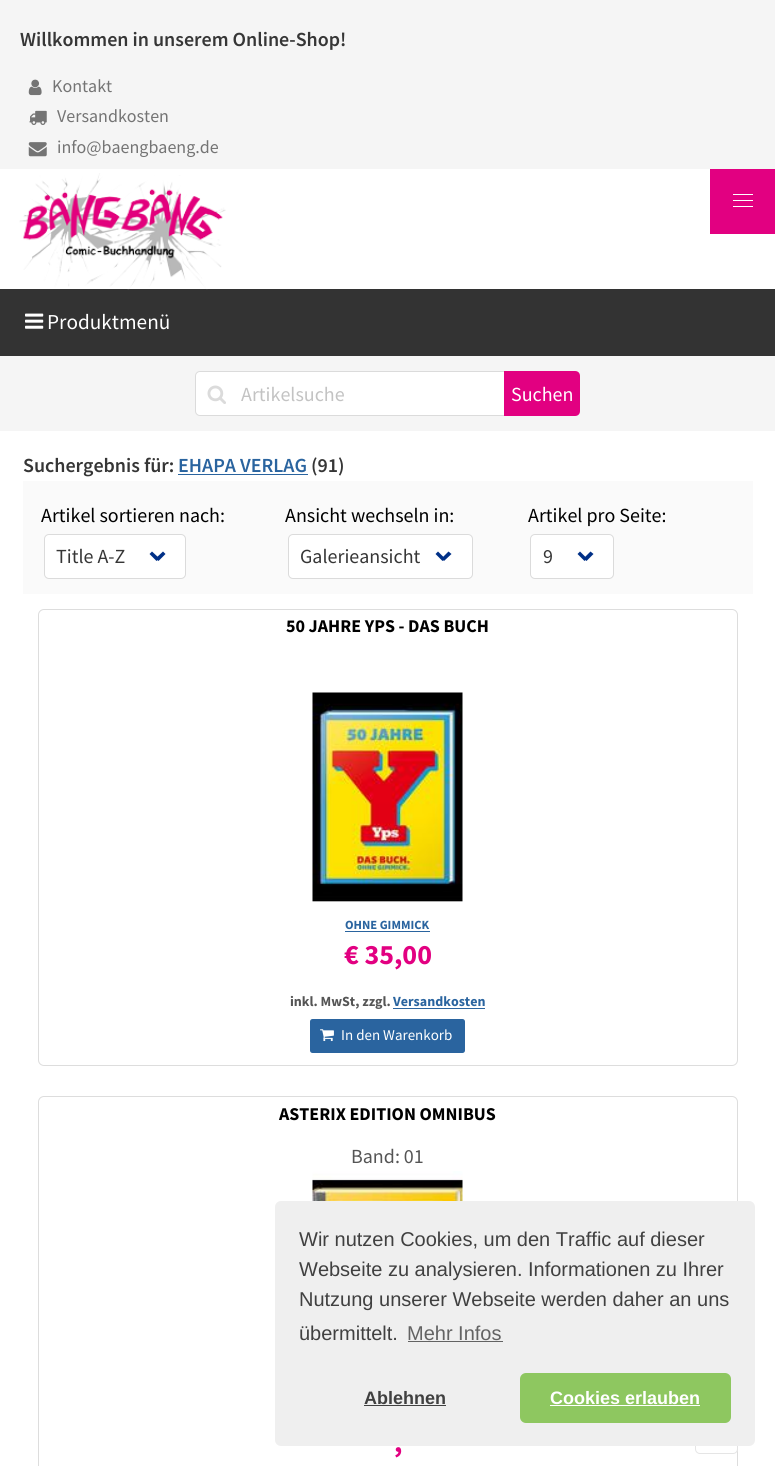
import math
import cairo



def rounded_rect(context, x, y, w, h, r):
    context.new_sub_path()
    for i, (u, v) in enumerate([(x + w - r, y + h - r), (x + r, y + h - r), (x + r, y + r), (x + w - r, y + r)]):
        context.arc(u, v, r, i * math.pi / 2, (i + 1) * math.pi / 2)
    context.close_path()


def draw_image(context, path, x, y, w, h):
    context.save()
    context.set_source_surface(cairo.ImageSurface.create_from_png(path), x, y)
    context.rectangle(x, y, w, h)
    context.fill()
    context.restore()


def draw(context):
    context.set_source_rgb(1, 1, 1)
    context.paint()
    context.set_source_rgb(245 / 255, 245 / 255, 245 / 255)
    context.rectangle(0, 0, 775, 169)
    context.fill()
    draw_image(context, "images/1.png", 28, 79, 14, 17)
    draw_image(context, "images/2.png", 29, 110, 18, 15)
    draw_image(context, "images/3.png", 28, 142, 19, 15)
    context.set_source_rgb(51 / 255, 51 / 255, 51 / 255)
    context.rectangle(0, 289, 775, 67)
    context.fill()
    draw_image(context, "images/4.png", 19, 173, 207, 117)
    context.set_source_rgb(226 / 255, 0, 129 / 255)
    context.rectangle(710, 169, 65, 65)
    context.fill()
    context.set_source_rgb(1, 1, 1)
    context.rectangle(733, 194, 20, 1)
    context.fill()
    context.rectangle(733, 200, 20, 1)
    context.fill()
    context.rectangle(733, 206, 20, 1)
    context.fill()
    draw_image(context, "images/5.png", 25, 313, 19, 16)
    context.set_source_rgb(245 / 255, 245 / 255, 245 / 255)
    context.rectangle(0, 356, 775, 75)
    context.fill()
    context.set_source_rgb(1, 1, 1)
    context.new_path()
    context.move_to(200, 371.5)
    context.line_to(504.5, 371.5)
    context.line_to(504.5, 415.5)
    context.line_to(200, 415.5)
    context.curve_to(197.5, 415.5, 195.5, 413.5, 195.5, 411)
    context.line_to(195.5, 376)
    context.curve_to(195.5, 373.5, 197.5, 371.5, 200, 371.5)
    context.close_path()
    context.fill_preserve()
    context.set_source_rgb(219 / 255, 219 / 255, 219 / 255)
    context.set_line_width(1)
    context.stroke()
    draw_image(context, "images/6.png", 207, 385, 19, 19)
    context.set_source_rgb(226 / 255, 0, 129 / 255)
    context.new_path()
    context.move_to(504, 371)
    context.line_to(575, 371)
    context.curve_to(578, 371, 580, 373, 580, 376)
    context.line_to(580, 411)
    context.curve_to(580, 414, 578, 416, 575, 416)
    context.line_to(504, 416)
    context.close_path()
    context.fill()
    context.set_source_rgb(42 / 255, 100 / 255, 159 / 255)
    context.rectangle(178, 474, 130, 1)
    context.fill()
    context.set_source_rgb(250 / 255, 250 / 255, 250 / 255)
    context.rectangle(23, 481, 730, 113)
    context.fill()
    context.set_source_rgb(1, 1, 1)
    rounded_rect(context, 44.5, 534.5, 141, 44, 4.5)
    context.fill_preserve()
    context.set_source_rgb(219 / 255, 219 / 255, 219 / 255)
    context.stroke()
    context.set_source_rgb(0, 48 / 255, 135 / 255)
    context.new_path()
    context.move_to(155.5, 558.5)
    context.line_to(163, 551.5)
    context.line_to(165.5, 554)
    context.line_to(158.5, 561)
    context.close_path()
    context.fill()
    context.new_path()
    context.move_to(149.5, 554)
    context.line_to(152, 551.5)
    context.line_to(159.5, 558.5)
    context.line_to(156.5, 561)
    context.close_path()
    context.fill()
    context.set_source_rgb(1, 1, 1)
    rounded_rect(context, 288.5, 534.5, 184, 44, 4.5)
    context.fill_preserve()
    context.set_source_rgb(219 / 255, 219 / 255, 219 / 255)
    context.stroke()
    context.set_source_rgb(0, 48 / 255, 135 / 255)
    context.new_path()
    context.move_to(441.5, 558.5)
    context.line_to(448.5, 551.5)
    context.line_to(451.5, 554)
    context.line_to(444, 561)
    context.close_path()
    context.fill()
    context.new_path()
    context.move_to(435.5, 554)
    context.line_to(438, 551.5)
    context.line_to(445, 558.5)
    context.line_to(442.5, 561)
    context.close_path()
    context.fill()
    context.set_source_rgb(1, 1, 1)
    rounded_rect(context, 530.5, 534.5, 83, 44, 4.5)
    context.fill_preserve()
    context.set_source_rgb(219 / 255, 219 / 255, 219 / 255)
    context.stroke()
    context.set_source_rgb(0, 48 / 255, 135 / 255)
    context.new_path()
    context.move_to(583.5, 558.5)
    context.line_to(590.5, 551.5)
    context.line_to(593.5, 554)
    context.line_to(586.5, 561)
    context.close_path()
    context.fill()
    context.new_path()
    context.move_to(577.5, 554)
    context.line_to(580, 551.5)
    context.line_to(587, 558.5)
    context.line_to(584.5, 561)
    context.close_path()
    context.fill()
    rounded_rect(context, 38.5, 609.5, 699, 456, 5.5)
    context.set_source_rgb(221 / 255, 221 / 255, 221 / 255)
    context.stroke()
    draw_image(context, "images/7.png", 312, 692, 151, 210)
    context.set_source_rgb(42 / 255, 100 / 255, 159 / 255)
    context.rectangle(345, 931, 85, 1)
    context.fill()
    context.rectangle(393, 1008, 92, 1)
    context.fill()
    rounded_rect(context, 310, 1019, 155, 34, 2.5)
    context.fill()
    draw_image(context, "images/8.png", 320, 1029, 14, 13)
    rounded_rect(context, 38.5, 1096.5, 699, 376, 5.5)
    context.set_source_rgb(221 / 255, 221 / 255, 221 / 255)
    context.stroke()
    draw_image(context, "images/9.png", 312, 1171, 151, 30)
    context.set_source_rgba(1, 1, 1, 0.7)
    rounded_rect(context, 695, 1411, 43, 43, 5)
    context.fill()
    rounded_rect(context, 695.5, 1411.5, 42, 42, 4.5)
    context.set_source_rgba(219 / 255, 219 / 255, 219 / 255, 0.7)
    context.stroke()
    context.set_source_rgb(239 / 255, 239 / 255, 239 / 255)
    rounded_rect(context, 275, 1201, 480, 245, 6)
    context.fill()
    context.set_source_rgb(99 / 255, 99 / 255, 99 / 255)
    context.rectangle(408, 1341, 95, 1)
    context.fill()
    context.set_source_rgb(64 / 255, 64 / 255, 64 / 255)
    context.rectangle(364, 1405, 82, 1)
    context.fill()
    context.set_source_rgb(142 / 255, 199 / 255, 96 / 255)
    rounded_rect(context, 520, 1373, 211, 50, 6)
    context.fill()
    context.set_source_rgb(1, 1, 1)
    context.rectangle(550, 1405, 150, 1)
    context.fill()
    context.select_font_face("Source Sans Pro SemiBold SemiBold")
    context.set_font_size(20)
    context.set_source_rgb(54 / 255, 54 / 255, 54 / 255)
    context.move_to(20, 46)
    context.show_text("Willkommen in unserem Online-Shop!")
    context.select_font_face("Source Sans Pro")
    context.set_font_size(18)
    context.set_source_rgb(116 / 255, 116 / 255, 116 / 255)
    context.move_to(52, 92)
    context.show_text("Kontakt")
    context.move_to(57, 122)
    context.show_text("Versandkosten")
    context.move_to(57, 153)
    context.show_text("info@baengbaeng.de")
    context.set_font_size(21.25)
    context.set_source_rgb(1, 1, 1)
    context.move_to(47, 329)
    context.show_text("Produktmenü")
    context.set_font_size(20)
    context.set_source_rgb(195 / 255, 195 / 255, 195 / 255)
    context.move_to(241, 401)
    context.show_text("Artikelsuche")
    context.set_source_rgb(1, 1, 1)
    context.move_to(511, 401)
    context.show_text("Suchen")
    context.select_font_face("Source Sans Pro SemiBold SemiBold")
    context.set_source_rgb(54 / 255, 54 / 255, 54 / 255)
    context.move_to(23, 472)
    context.show_text("Suchergebnis für:")
    context.set_source_rgb(42 / 255, 100 / 255, 159 / 255)
    context.move_to(178, 472)
    context.show_text("EHAPA VERLAG")
    context.set_source_rgb(54 / 255, 54 / 255, 54 / 255)
    context.move_to(311, 472)
    context.show_text("(91)")
    context.select_font_face("Source Sans Pro")
    context.set_source_rgb(0, 0, 0)
    context.move_to(41, 522)
    context.show_text("Artikel sortieren nach:")
    context.set_source_rgb(54 / 255, 54 / 255, 54 / 255)
    context.move_to(56, 563)
    context.show_text("Title A-Z")
    context.set_source_rgb(0, 0, 0)
    context.move_to(285, 522)
    context.show_text("Ansicht wechseln in:")
    context.set_source_rgb(54 / 255, 54 / 255, 54 / 255)
    context.move_to(300, 563)
    context.show_text("Galerieansicht")
    context.set_source_rgb(0, 0, 0)
    context.move_to(528, 522)
    context.show_text("Artikel pro Seite:")
    context.set_source_rgb(54 / 255, 54 / 255, 54 / 255)
    context.move_to(543, 563)
    context.show_text("9")
    context.select_font_face("Source Sans Pro", cairo.FontSlant.NORMAL, cairo.FontWeight.BOLD)
    context.set_font_size(18)
    context.set_source_rgb(0, 0, 0)
    context.move_to(286, 632)
    context.show_text("50 JAHRE YPS - DAS BUCH")
    context.set_font_size(12.5)
    context.set_source_rgb(42 / 255, 100 / 255, 159 / 255)
    context.move_to(345, 929)
    context.show_text("OHNE GIMMICK")
    context.set_font_size(28)
    context.set_source_rgb(226 / 255, 0, 129 / 255)
    context.move_to(344, 964)
    context.show_text("€ 35,00")
    context.set_font_size(14)
    context.set_source_rgb(85 / 255, 85 / 255, 85 / 255)
    context.move_to(290, 1006)
    context.show_text("inkl. MwSt, zzgl.")
    context.set_source_rgb(42 / 255, 100 / 255, 159 / 255)
    context.move_to(393, 1006)
    context.show_text("Versandkosten")
    context.select_font_face("Source Sans Pro")
    context.set_font_size(15)
    context.set_source_rgb(1, 1, 1)
    context.move_to(341, 1040)
    context.show_text("In den Warenkorb")
    context.select_font_face("Source Sans Pro", cairo.FontSlant.NORMAL, cairo.FontWeight.BOLD)
    context.set_font_size(18)
    context.set_source_rgb(0, 0, 0)
    context.move_to(279, 1120)
    context.show_text("ASTERIX EDITION OMNIBUS")
    context.select_font_face("Source Sans Pro")
    context.set_font_size(20)
    context.set_source_rgb(85 / 255, 85 / 255, 85 / 255)
    context.move_to(351, 1163)
    context.show_text("Band: 01")
    context.select_font_face("Source Sans Pro", cairo.FontSlant.NORMAL, cairo.FontWeight.BOLD)
    context.set_font_size(28)
    context.set_source_rgb(226 / 255, 0, 129 / 255)
    context.move_to(394, 1452)
    context.show_text(",")
    context.select_font_face("Liberation Sans")
    context.set_font_size(20)
    context.set_source_rgb(64 / 255, 64 / 255, 64 / 255)
    context.move_to(299, 1246)
    context.show_text("Wir nutzen Cookies, um den Traffic auf dieser")
    context.move_to(299, 1276)
    context.show_text("Webseite zu analysieren. Informationen zu Ihrer")
    context.move_to(299, 1306)
    context.show_text("Nutzung unserer Webseite werden daher an uns")
    context.move_to(299, 1340)
    context.show_text("übermittelt.")
    context.set_source_rgb(99 / 255, 99 / 255, 99 / 255)
    context.move_to(407, 1340)
    context.show_text("Mehr Infos")
    context.select_font_face("Liberation Sans", cairo.FontSlant.NORMAL, cairo.FontWeight.BOLD)
    context.set_font_size(18)
    context.set_source_rgb(64 / 255, 64 / 255, 64 / 255)
    context.move_to(364, 1404)
    context.show_text("Ablehnen")
    context.set_source_rgb(1, 1, 1)
    context.move_to(550, 1404)
    context.show_text("Cookies erlauben")


surface = cairo.ImageSurface(cairo.Format.RGB24, 775, 1466)
context = cairo.Context(surface)
options = cairo.FontOptions()
options.set_hint_metrics(cairo.HintMetrics.OFF)
options.set_hint_style(cairo.HintStyle.NONE)
context.set_font_options(options)
context.set_miter_limit(4)
draw(context)
surface.write_to_png("out.png")
